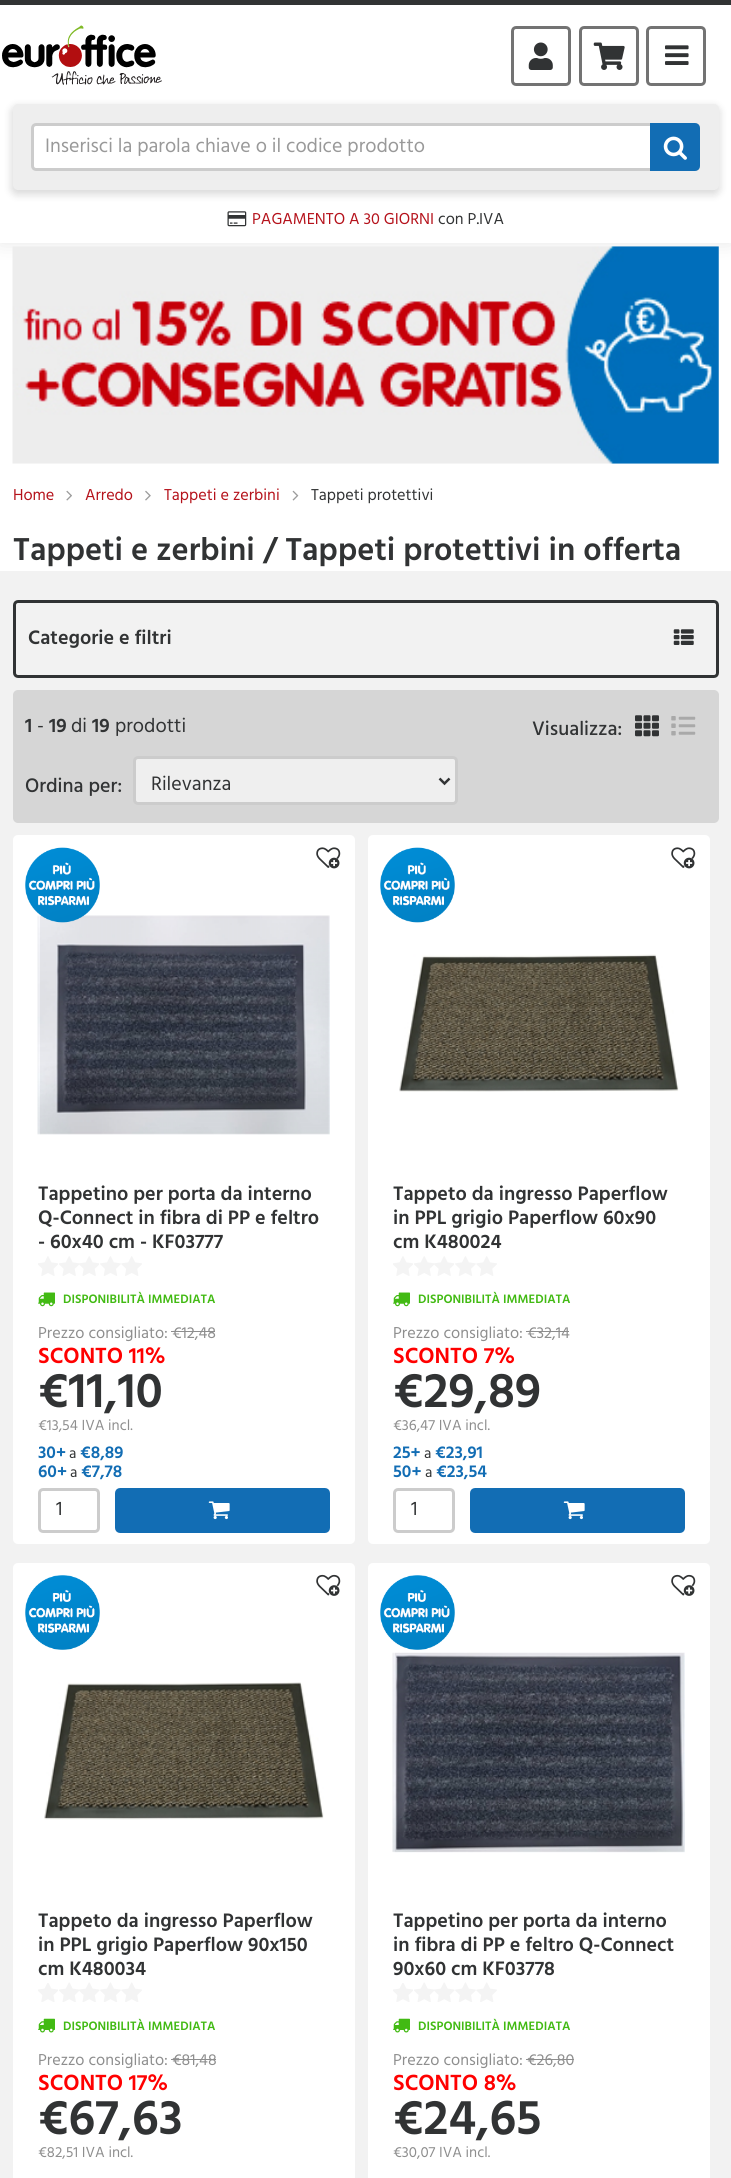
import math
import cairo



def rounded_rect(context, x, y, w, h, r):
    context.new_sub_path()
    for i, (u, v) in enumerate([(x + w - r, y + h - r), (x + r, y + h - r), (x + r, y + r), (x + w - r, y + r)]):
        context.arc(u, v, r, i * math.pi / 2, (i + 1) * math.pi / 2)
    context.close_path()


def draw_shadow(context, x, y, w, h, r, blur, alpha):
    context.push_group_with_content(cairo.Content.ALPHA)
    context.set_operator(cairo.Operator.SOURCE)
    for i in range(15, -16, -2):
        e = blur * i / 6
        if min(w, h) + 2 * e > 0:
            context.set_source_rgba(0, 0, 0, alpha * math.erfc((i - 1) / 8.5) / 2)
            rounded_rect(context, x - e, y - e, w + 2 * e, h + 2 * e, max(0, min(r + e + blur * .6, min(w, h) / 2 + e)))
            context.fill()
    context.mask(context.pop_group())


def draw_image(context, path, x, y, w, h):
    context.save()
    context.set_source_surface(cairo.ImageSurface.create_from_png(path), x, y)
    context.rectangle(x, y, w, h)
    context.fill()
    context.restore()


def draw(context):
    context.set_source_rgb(242 / 255, 242 / 255, 242 / 255)
    context.paint()
    context.set_source_rgb(49 / 255, 51 / 255, 52 / 255)
    context.rectangle(0, 0, 731, 5)
    context.fill()
    context.set_source_rgb(1, 1, 1)
    context.rectangle(0, 243, 731, 328)
    context.fill()
    context.set_source_rgb(0, 0, 0)
    draw_shadow(context, 0, 196, 731, 47, 0, 9.5, 0.1)
    context.set_source_rgb(1, 1, 1)
    context.rectangle(0, 5, 731, 238)
    context.fill()
    draw_image(context, "images/1.png", 2, 25, 160, 60)
    rounded_rect(context, 512.5, 27.5, 57, 57, 3.5)
    context.set_source_rgb(115 / 255, 115 / 255, 115 / 255)
    context.set_line_width(3)
    context.stroke()
    draw_image(context, "images/2.png", 528, 42, 25, 28)
    rounded_rect(context, 580.5, 27.5, 57, 57, 3.5)
    context.stroke()
    draw_image(context, "images/3.png", 593, 42, 32, 28)
    rounded_rect(context, 647.5, 27.5, 57, 57, 3.5)
    context.stroke()
    draw_image(context, "images/4.png", 665, 45, 24, 20)
    context.set_source_rgb(0, 0, 0)
    draw_shadow(context, 11, 106, 709, 89, 6, 4, 0.14)
    context.set_source_rgb(238 / 255, 238 / 255, 238 / 255)
    rounded_rect(context, 13, 104, 706, 86, 5)
    context.fill()
    context.set_source_rgb(1, 1, 1)
    rounded_rect(context, 32.5, 124.5, 666, 45, 3.5)
    context.fill_preserve()
    context.set_source_rgb(204 / 255, 204 / 255, 204 / 255)
    context.stroke()
    context.set_source_rgb(18 / 255, 109 / 255, 180 / 255)
    context.new_path()
    context.move_to(651.5, 124.5)
    context.line_to(695, 124.5)
    context.curve_to(697, 124.5, 698.5, 126, 698.5, 128)
    context.line_to(698.5, 166)
    context.curve_to(698.5, 168, 697, 169.5, 695, 169.5)
    context.line_to(651.5, 169.5)
    context.close_path()
    context.fill_preserve()
    context.stroke()
    draw_image(context, "images/5.png", 663, 136, 24, 24)
    draw_image(context, "images/6.png", 227, 211, 20, 16)
    draw_image(context, "images/7.png", 12, 246, 707, 218)
    draw_image(context, "images/8.png", 66, 490, 6, 11)
    draw_image(context, "images/9.png", 145, 490, 6, 11)
    draw_image(context, "images/10.png", 292, 490, 7, 11)
    rounded_rect(context, 14.5, 601.5, 703, 75, 3.5)
    context.set_source_rgb(49 / 255, 51 / 255, 52 / 255)
    context.stroke()
    draw_image(context, "images/11.png", 673, 629, 21, 16)
    context.set_source_rgb(214 / 255, 214 / 255, 214 / 255)
    rounded_rect(context, 13, 690, 706, 133, 5)
    context.fill()
    draw_image(context, "images/12.png", 635, 715, 24, 22)
    draw_image(context, "images/13.png", 671, 716, 25, 20)
    context.set_source_rgb(239 / 255, 239 / 255, 239 / 255)
    rounded_rect(context, 134.5, 757.5, 322, 46, 3.5)
    context.fill_preserve()
    context.set_source_rgb(204 / 255, 204 / 255, 204 / 255)
    context.stroke()
    context.new_path()
    context.move_to(439.5, 778.5)
    context.line_to(444.5, 783.5)
    context.line_to(449.5, 778.5)
    context.set_source_rgb(49 / 255, 51 / 255, 52 / 255)
    context.set_line_width(2.5)
    context.stroke()
    context.set_source_rgb(1, 1, 1)
    rounded_rect(context, 13, 835, 342, 709, 5)
    context.fill()
    draw_image(context, "images/14.png", 316, 847, 25, 21)
    rounded_rect(context, 329, 858, 11, 12, 5.5)
    context.fill()
    draw_image(context, "images/15.png", 328, 857, 12, 12)
    draw_image(context, "images/17.png", 37, 915, 293, 220)
    draw_image(context, "images/16.png", 25, 847, 75, 76)
    draw_image(context, "images/18.png", 38, 1256, 20, 20)
    draw_image(context, "images/19.png", 59, 1256, 20, 20)
    draw_image(context, "images/19.png", 79, 1256, 20, 20)
    draw_image(context, "images/20.png", 100, 1256, 21, 20)
    draw_image(context, "images/21.png", 121, 1256, 21, 20)
    draw_image(context, "images/22.png", 38, 1292, 17, 15)
    context.set_source_rgb(142 / 255, 142 / 255, 142 / 255)
    context.rectangle(171, 1331, 44, 1)
    context.fill()
    rounded_rect(context, 39.5, 1489.5, 59, 42, 3.5)
    context.set_source_rgb(204 / 255, 204 / 255, 204 / 255)
    context.set_line_width(3)
    context.stroke()
    context.set_source_rgb(18 / 255, 109 / 255, 180 / 255)
    rounded_rect(context, 116.5, 1489.5, 212, 42, 3.5)
    context.fill_preserve()
    context.stroke()
    draw_image(context, "images/23.png", 208, 1501, 22, 19)
    context.set_source_rgb(1, 1, 1)
    rounded_rect(context, 368, 835, 342, 709, 5)
    context.fill()
    draw_image(context, "images/14.png", 671, 847, 25, 21)
    rounded_rect(context, 684, 858, 11, 12, 5.5)
    context.fill()
    draw_image(context, "images/15.png", 683, 857, 12, 12)
    draw_image(context, "images/24.png", 380, 847, 75, 76)
    draw_image(context, "images/25.png", 399, 954, 280, 138)
    draw_image(context, "images/18.png", 393, 1256, 20, 20)
    draw_image(context, "images/19.png", 414, 1256, 20, 20)
    draw_image(context, "images/19.png", 434, 1256, 20, 20)
    draw_image(context, "images/20.png", 455, 1256, 21, 20)
    draw_image(context, "images/21.png", 476, 1256, 21, 20)
    draw_image(context, "images/22.png", 393, 1292, 17, 15)
    context.set_source_rgb(142 / 255, 142 / 255, 142 / 255)
    context.rectangle(526, 1331, 43, 1)
    context.fill()
    rounded_rect(context, 394.5, 1489.5, 59, 42, 3.5)
    context.set_source_rgb(204 / 255, 204 / 255, 204 / 255)
    context.stroke()
    context.set_source_rgb(18 / 255, 109 / 255, 180 / 255)
    rounded_rect(context, 471.5, 1489.5, 212, 42, 3.5)
    context.fill_preserve()
    context.stroke()
    draw_image(context, "images/23.png", 563, 1501, 22, 19)
    context.set_source_rgb(1, 1, 1)
    rounded_rect(context, 13, 1563, 342, 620, 5)
    context.fill()
    draw_image(context, "images/26.png", 316, 1574, 25, 22)
    rounded_rect(context, 329, 1585, 11, 13, 5.5)
    context.fill()
    draw_image(context, "images/27.png", 328, 1585, 12, 11)
    draw_image(context, "images/28.png", 25, 1575, 75, 75)
    draw_image(context, "images/29.png", 44, 1682, 280, 138)
    draw_image(context, "images/30.png", 38, 1983, 20, 19)
    draw_image(context, "images/31.png", 59, 1982, 21, 20)
    draw_image(context, "images/32.png", 79, 1982, 21, 20)
    draw_image(context, "images/33.png", 100, 1982, 21, 20)
    draw_image(context, "images/34.png", 121, 1982, 21, 20)
    draw_image(context, "images/35.png", 38, 2018, 17, 15)
    context.set_source_rgb(142 / 255, 142 / 255, 142 / 255)
    context.rectangle(171, 2059, 45, 1)
    context.fill()
    context.set_source_rgb(1, 1, 1)
    rounded_rect(context, 368, 1563, 342, 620, 5)
    context.fill()
    draw_image(context, "images/26.png", 671, 1574, 25, 22)
    rounded_rect(context, 684, 1585, 11, 13, 5.5)
    context.fill()
    draw_image(context, "images/27.png", 683, 1585, 12, 11)
    draw_image(context, "images/28.png", 380, 1575, 75, 75)
    draw_image(context, "images/36.png", 392, 1652, 293, 201)
    draw_image(context, "images/30.png", 393, 1983, 20, 19)
    draw_image(context, "images/31.png", 414, 1982, 21, 20)
    draw_image(context, "images/32.png", 434, 1982, 21, 20)
    draw_image(context, "images/33.png", 455, 1982, 21, 20)
    draw_image(context, "images/34.png", 476, 1982, 21, 20)
    draw_image(context, "images/35.png", 393, 2018, 17, 15)
    context.set_source_rgb(142 / 255, 142 / 255, 142 / 255)
    context.rectangle(526, 2059, 48, 1)
    context.fill()
    context.select_font_face("Hind")
    context.set_font_size(20)
    context.set_source_rgb(153 / 255, 153 / 255, 153 / 255)
    context.move_to(45, 152)
    context.show_text("Inserisci la parola chiave o il codice prodotto")
    context.set_font_size(16.25)
    context.set_source_rgb(181 / 255, 18 / 255, 27 / 255)
    context.move_to(252, 224)
    context.show_text("PAGAMENTO A 30 GIORNI")
    context.set_source_rgb(49 / 255, 51 / 255, 52 / 255)
    context.move_to(438, 224)
    context.show_text("con P.IVA")
    context.set_source_rgb(181 / 255, 18 / 255, 27 / 255)
    context.move_to(13, 500)
    context.show_text("Home")
    context.move_to(85, 500)
    context.show_text("Arredo")
    context.move_to(164, 500)
    context.show_text("Tappeti e zerbini")
    context.set_source_rgb(49 / 255, 51 / 255, 52 / 255)
    context.move_to(311, 500)
    context.show_text("Tappeti protettivi")
    context.select_font_face("Hind SemiBold")
    context.set_font_size(32.5)
    context.move_to(13, 560)
    context.show_text("Tappeti e zerbini / Tappeti protettivi in offerta")
    context.set_font_size(20)
    context.move_to(28, 644)
    context.show_text("Categorie e filtri")
    context.move_to(25, 732)
    context.show_text("1")
    context.select_font_face("Hind")
    context.move_to(37, 732)
    context.show_text("-")
    context.select_font_face("Hind SemiBold")
    context.move_to(49, 732)
    context.show_text("19")
    context.select_font_face("Hind")
    context.move_to(71, 732)
    context.show_text("di")
    context.select_font_face("Hind SemiBold")
    context.move_to(92, 732)
    context.show_text("19")
    context.select_font_face("Hind")
    context.move_to(115, 732)
    context.show_text("prodotti")
    context.select_font_face("Hind Medium")
    context.move_to(532, 735)
    context.show_text("Visualizza:")
    context.move_to(25, 792)
    context.show_text("Ordina per:")
    context.select_font_face("Hind")
    context.move_to(151, 790)
    context.show_text("Rilevanza")
    context.select_font_face("Hind SemiBold")
    context.move_to(38, 1200)
    context.show_text("Tappetino per porta da interno")
    context.move_to(38, 1224)
    context.show_text("Q-Connect in fibra di PP e feltro")
    context.move_to(38, 1248)
    context.show_text("- 60x40 cm - KF03777")
    context.set_font_size(12.5)
    context.set_source_rgb(66 / 255, 186 / 255, 19 / 255)
    context.move_to(63, 1303)
    context.show_text("DISPONIBILITÀ IMMEDIATA")
    context.select_font_face("Hind")
    context.set_font_size(16.25)
    context.set_source_rgb(142 / 255, 142 / 255, 142 / 255)
    context.move_to(38, 1338)
    context.show_text("Prezzo consigliato: €12,48")
    context.select_font_face("Hind SemiBold")
    context.set_font_size(22.5)
    context.set_source_rgb(1, 0, 0)
    context.move_to(38, 1363)
    context.show_text("SCONTO 11%")
    context.set_font_size(50)
    context.set_source_rgb(49 / 255, 51 / 255, 52 / 255)
    context.move_to(38, 1407)
    context.show_text("€11,10")
    context.select_font_face("Hind")
    context.set_font_size(15)
    context.set_source_rgb(142 / 255, 142 / 255, 142 / 255)
    context.move_to(38, 1430)
    context.show_text("€13,54 IVA incl.")
    context.select_font_face("Hind SemiBold")
    context.set_font_size(17.5)
    context.set_source_rgb(18 / 255, 109 / 255, 180 / 255)
    context.move_to(38, 1458)
    context.show_text("30+")
    context.select_font_face("Hind")
    context.set_font_size(15)
    context.set_source_rgb(49 / 255, 51 / 255, 52 / 255)
    context.move_to(69, 1458)
    context.show_text("a")
    context.select_font_face("Hind SemiBold")
    context.set_font_size(17.5)
    context.set_source_rgb(18 / 255, 109 / 255, 180 / 255)
    context.move_to(80, 1458)
    context.show_text("€8,89")
    context.move_to(38, 1477)
    context.show_text("60+")
    context.select_font_face("Hind")
    context.set_font_size(15)
    context.set_source_rgb(49 / 255, 51 / 255, 52 / 255)
    context.move_to(70, 1477)
    context.show_text("a")
    context.select_font_face("Hind SemiBold")
    context.set_font_size(17.5)
    context.set_source_rgb(18 / 255, 109 / 255, 180 / 255)
    context.move_to(81, 1477)
    context.show_text("€7,78")
    context.select_font_face("Hind")
    context.set_font_size(20)
    context.set_source_rgb(49 / 255, 51 / 255, 52 / 255)
    context.move_to(56, 1515)
    context.show_text("1")
    context.select_font_face("Hind SemiBold")
    context.move_to(393, 1200)
    context.show_text("Tappeto da ingresso Paperflow")
    context.move_to(393, 1224)
    context.show_text("in PPL grigio Paperflow 60x90")
    context.move_to(393, 1248)
    context.show_text("cm K480024")
    context.set_font_size(12.5)
    context.set_source_rgb(66 / 255, 186 / 255, 19 / 255)
    context.move_to(418, 1303)
    context.show_text("DISPONIBILITÀ IMMEDIATA")
    context.select_font_face("Hind")
    context.set_font_size(16.25)
    context.set_source_rgb(142 / 255, 142 / 255, 142 / 255)
    context.move_to(393, 1338)
    context.show_text("Prezzo consigliato: €32,14")
    context.select_font_face("Hind SemiBold")
    context.set_font_size(22.5)
    context.set_source_rgb(1, 0, 0)
    context.move_to(393, 1363)
    context.show_text("SCONTO 7%")
    context.set_font_size(50)
    context.set_source_rgb(49 / 255, 51 / 255, 52 / 255)
    context.move_to(393, 1407)
    context.show_text("€29,89")
    context.select_font_face("Hind")
    context.set_font_size(15)
    context.set_source_rgb(142 / 255, 142 / 255, 142 / 255)
    context.move_to(393, 1430)
    context.show_text("€36,47 IVA incl.")
    context.select_font_face("Hind SemiBold")
    context.set_font_size(17.5)
    context.set_source_rgb(18 / 255, 109 / 255, 180 / 255)
    context.move_to(393, 1458)
    context.show_text("25+")
    context.select_font_face("Hind")
    context.set_font_size(15)
    context.set_source_rgb(49 / 255, 51 / 255, 52 / 255)
    context.move_to(424, 1458)
    context.show_text("a")
    context.select_font_face("Hind SemiBold")
    context.set_font_size(17.5)
    context.set_source_rgb(18 / 255, 109 / 255, 180 / 255)
    context.move_to(435, 1458)
    context.show_text("€23,91")
    context.move_to(393, 1477)
    context.show_text("50+")
    context.select_font_face("Hind")
    context.set_font_size(15)
    context.set_source_rgb(49 / 255, 51 / 255, 52 / 255)
    context.move_to(425, 1477)
    context.show_text("a")
    context.select_font_face("Hind SemiBold")
    context.set_font_size(17.5)
    context.set_source_rgb(18 / 255, 109 / 255, 180 / 255)
    context.move_to(436, 1477)
    context.show_text("€23,54")
    context.select_font_face("Hind")
    context.set_font_size(20)
    context.set_source_rgb(49 / 255, 51 / 255, 52 / 255)
    context.move_to(411, 1515)
    context.show_text("1")
    context.select_font_face("Hind SemiBold")
    context.move_to(38, 1927)
    context.show_text("Tappeto da ingresso Paperflow")
    context.move_to(38, 1951)
    context.show_text("in PPL grigio Paperflow 90x150")
    context.move_to(38, 1975)
    context.show_text("cm K480034")
    context.set_font_size(12.5)
    context.set_source_rgb(66 / 255, 186 / 255, 19 / 255)
    context.move_to(63, 2030)
    context.show_text("DISPONIBILITÀ IMMEDIATA")
    context.select_font_face("Hind")
    context.set_font_size(16.25)
    context.set_source_rgb(142 / 255, 142 / 255, 142 / 255)
    context.move_to(38, 2065)
    context.show_text("Prezzo consigliato: €81,48")
    context.select_font_face("Hind SemiBold")
    context.set_font_size(22.5)
    context.set_source_rgb(1, 0, 0)
    context.move_to(38, 2090)
    context.show_text("SCONTO 17%")
    context.set_font_size(50)
    context.set_source_rgb(49 / 255, 51 / 255, 52 / 255)
    context.move_to(38, 2134)
    context.show_text("€67,63")
    context.select_font_face("Hind")
    context.set_font_size(15)
    context.set_source_rgb(142 / 255, 142 / 255, 142 / 255)
    context.move_to(38, 2157)
    context.show_text("€82,51 IVA incl.")
    context.select_font_face("Hind SemiBold")
    context.set_font_size(20)
    context.set_source_rgb(49 / 255, 51 / 255, 52 / 255)
    context.move_to(393, 1927)
    context.show_text("Tappetino per porta da interno")
    context.move_to(393, 1951)
    context.show_text("in fibra di PP e feltro Q-Connect")
    context.move_to(393, 1975)
    context.show_text("90x60 cm KF03778")
    context.set_font_size(12.5)
    context.set_source_rgb(66 / 255, 186 / 255, 19 / 255)
    context.move_to(418, 2030)
    context.show_text("DISPONIBILITÀ IMMEDIATA")
    context.select_font_face("Hind")
    context.set_font_size(16.25)
    context.set_source_rgb(142 / 255, 142 / 255, 142 / 255)
    context.move_to(393, 2065)
    context.show_text("Prezzo consigliato: €26,80")
    context.select_font_face("Hind SemiBold")
    context.set_font_size(22.5)
    context.set_source_rgb(1, 0, 0)
    context.move_to(393, 2090)
    context.show_text("SCONTO 8%")
    context.set_font_size(50)
    context.set_source_rgb(49 / 255, 51 / 255, 52 / 255)
    context.move_to(393, 2134)
    context.show_text("€24,65")
    context.select_font_face("Hind")
    context.set_font_size(15)
    context.set_source_rgb(142 / 255, 142 / 255, 142 / 255)
    context.move_to(393, 2157)
    context.show_text("€30,07 IVA incl.")


surface = cairo.ImageSurface(cairo.Format.RGB24, 731, 2178)
context = cairo.Context(surface)
options = cairo.FontOptions()
options.set_hint_metrics(cairo.HintMetrics.OFF)
options.set_hint_style(cairo.HintStyle.NONE)
context.set_font_options(options)
context.set_miter_limit(4)
draw(context)
surface.write_to_png("out.png")
